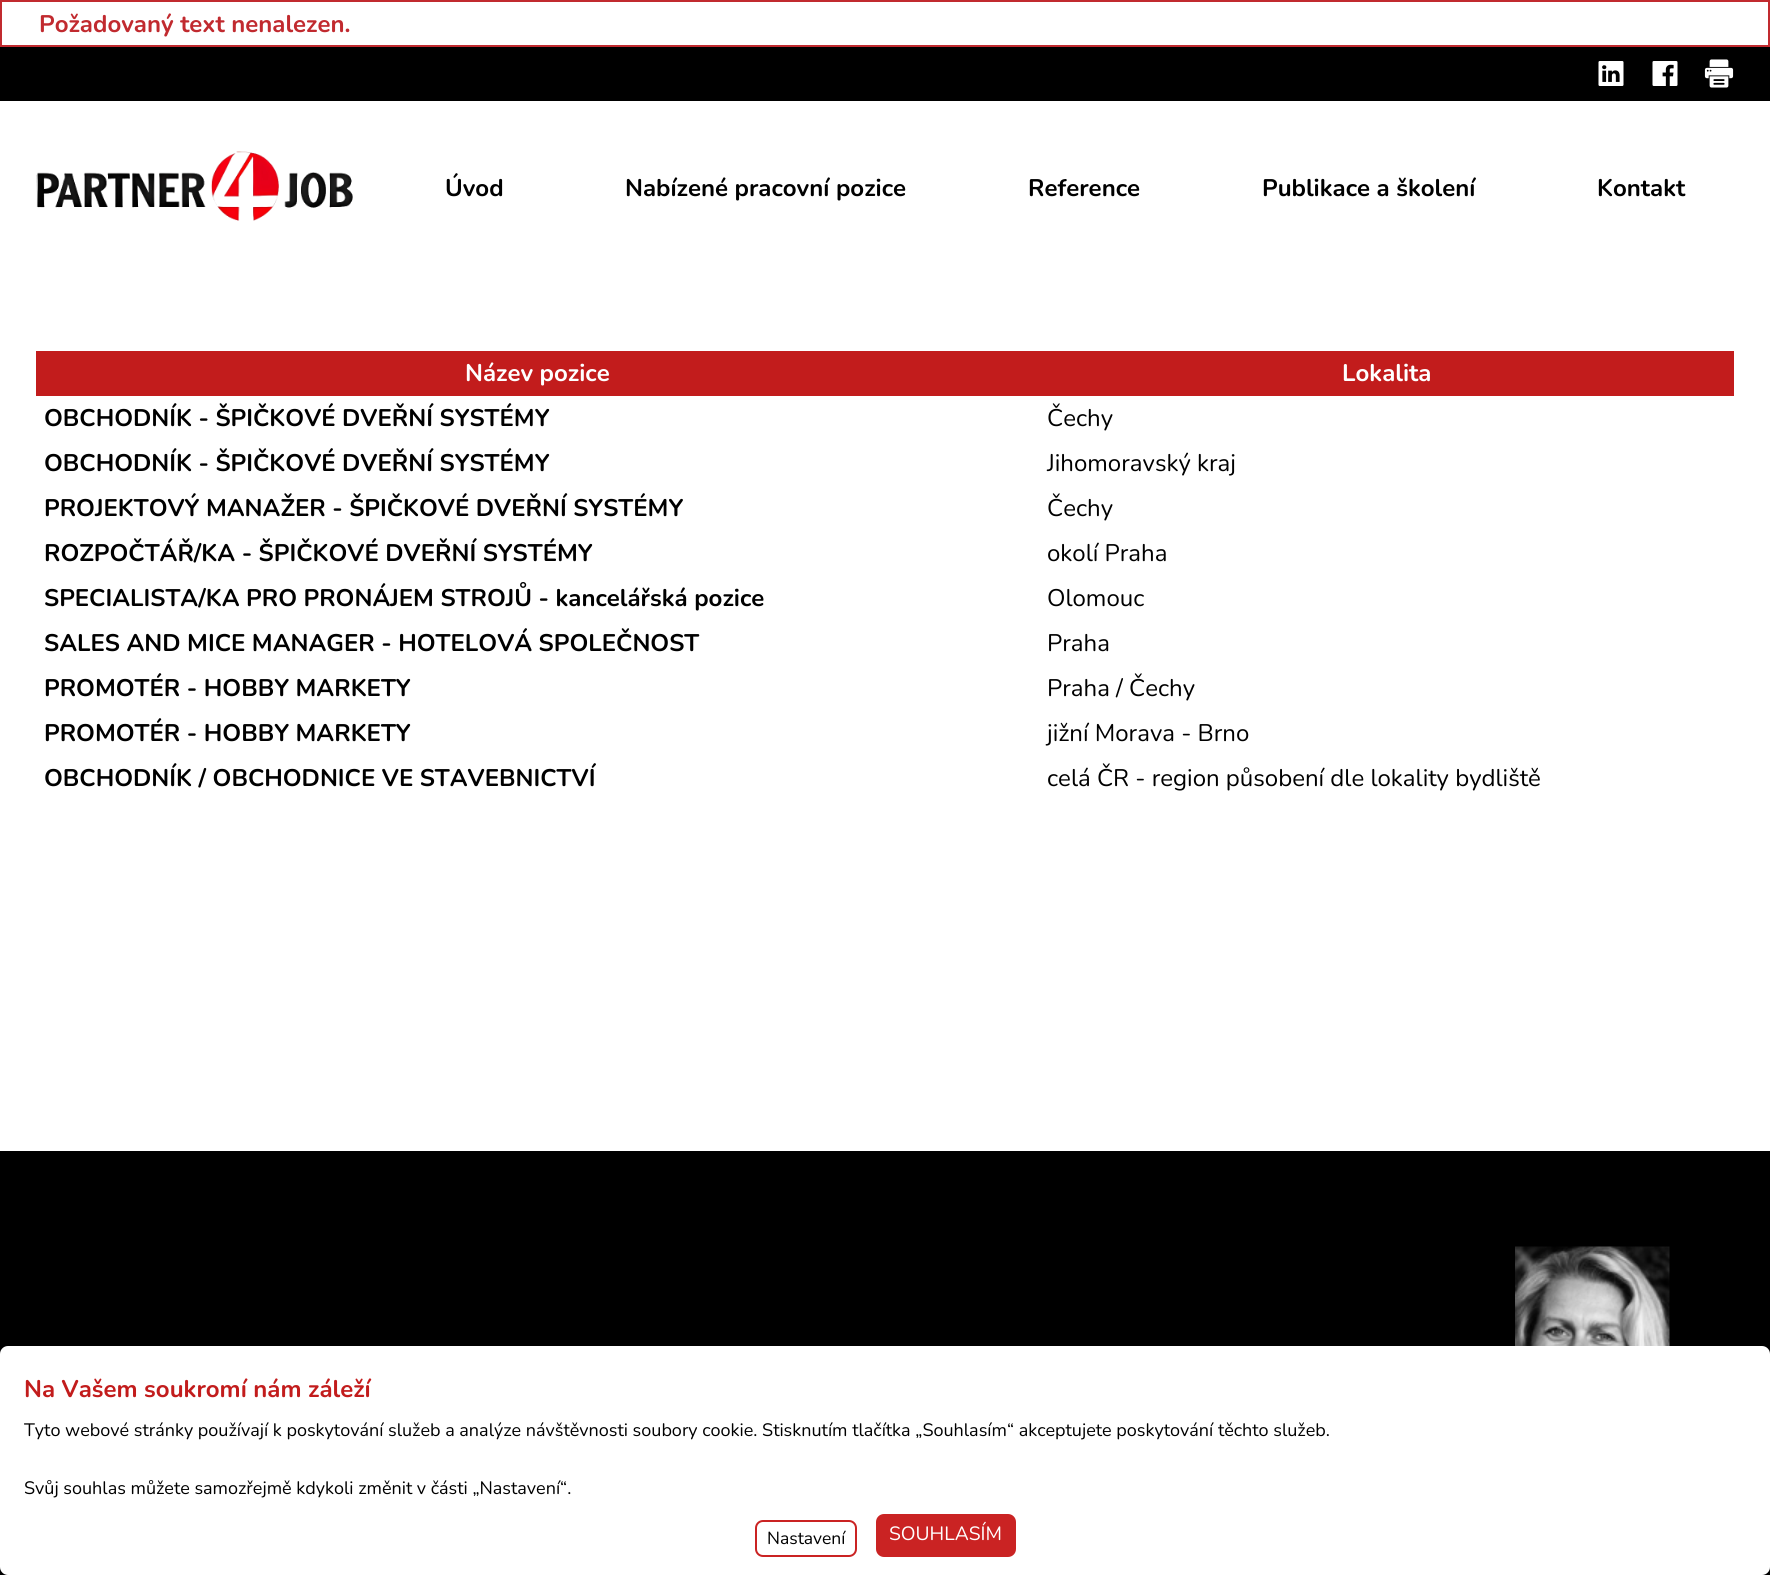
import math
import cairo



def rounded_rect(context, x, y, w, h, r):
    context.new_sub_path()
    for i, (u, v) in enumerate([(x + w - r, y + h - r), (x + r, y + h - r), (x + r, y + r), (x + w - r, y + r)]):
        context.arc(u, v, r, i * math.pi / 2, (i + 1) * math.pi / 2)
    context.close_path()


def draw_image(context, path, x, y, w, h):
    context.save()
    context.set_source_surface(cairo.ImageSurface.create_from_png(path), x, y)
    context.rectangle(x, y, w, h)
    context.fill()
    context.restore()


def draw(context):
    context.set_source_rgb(1, 1, 1)
    context.paint()
    context.rectangle(1, 1, 1768, 45)
    context.set_source_rgb(193 / 255, 42 / 255, 47 / 255)
    context.stroke()
    context.set_source_rgb(0, 0, 0)
    context.rectangle(0, 47, 1770, 54)
    context.fill()
    draw_image(context, "images/1.png", 1598, 61, 26, 25)
    draw_image(context, "images/2.png", 1652, 61, 26, 25)
    draw_image(context, "images/3.png", 1704, 59, 30, 29)
    draw_image(context, "images/4.png", 36, 151, 317, 70)
    context.set_source_rgb(194 / 255, 28 / 255, 28 / 255)
    context.rectangle(36, 351, 1698, 45)
    context.fill()
    context.set_source_rgb(0, 0, 0)
    context.rectangle(0, 1151, 1770, 424)
    context.fill()
    draw_image(context, "images/5.png", 1515, 1246, 155, 100)
    context.set_source_rgb(1, 1, 1)
    rounded_rect(context, 0, 1346, 1770, 229, 8)
    context.fill()
    rounded_rect(context, 756, 1521, 100, 35, 7)
    context.set_source_rgb(202 / 255, 35 / 255, 35 / 255)
    context.stroke()
    rounded_rect(context, 877, 1515, 138, 41, 7)
    context.fill_preserve()
    context.stroke()
    context.select_font_face("Nunito", cairo.FontSlant.NORMAL, cairo.FontWeight.BOLD)
    context.set_font_size(24)
    context.set_source_rgb(193 / 255, 42 / 255, 47 / 255)
    context.move_to(39, 32)
    context.show_text("Požadovaný text nenalezen.")
    context.set_source_rgb(0, 0, 0)
    context.move_to(445, 196)
    context.show_text("Úvod")
    context.move_to(625, 196)
    context.show_text("Nabízené pracovní pozice")
    context.move_to(1028, 196)
    context.show_text("Reference")
    context.move_to(1262, 196)
    context.show_text("Publikace a školení")
    context.move_to(1597, 196)
    context.show_text("Kontakt")
    context.set_source_rgb(1, 1, 1)
    context.move_to(465, 381)
    context.show_text("Název pozice")
    context.move_to(1342, 381)
    context.show_text("Lokalita")
    context.set_source_rgb(0, 0, 0)
    context.move_to(44, 426)
    context.show_text("OBCHODNÍK - ŠPIČKOVÉ DVEŘNÍ SYSTÉMY")
    context.select_font_face("Nunito")
    context.move_to(1047, 426)
    context.show_text("Čechy")
    context.select_font_face("Nunito", cairo.FontSlant.NORMAL, cairo.FontWeight.BOLD)
    context.move_to(44, 471)
    context.show_text("OBCHODNÍK - ŠPIČKOVÉ DVEŘNÍ SYSTÉMY")
    context.select_font_face("Nunito")
    context.move_to(1047, 471)
    context.show_text("Jihomoravský kraj")
    context.select_font_face("Nunito", cairo.FontSlant.NORMAL, cairo.FontWeight.BOLD)
    context.move_to(44, 516)
    context.show_text("PROJEKTOVÝ MANAŽER - ŠPIČKOVÉ DVEŘNÍ SYSTÉMY")
    context.select_font_face("Nunito")
    context.move_to(1047, 516)
    context.show_text("Čechy")
    context.select_font_face("Nunito", cairo.FontSlant.NORMAL, cairo.FontWeight.BOLD)
    context.move_to(44, 561)
    context.show_text("ROZPOČTÁŘ/KA - ŠPIČKOVÉ DVEŘNÍ SYSTÉMY")
    context.select_font_face("Nunito")
    context.move_to(1047, 561)
    context.show_text("okolí Praha")
    context.select_font_face("Nunito", cairo.FontSlant.NORMAL, cairo.FontWeight.BOLD)
    context.move_to(44, 606)
    context.show_text("SPECIALISTA/KA PRO PRONÁJEM STROJŮ - kancelářská pozice")
    context.select_font_face("Nunito")
    context.move_to(1047, 606)
    context.show_text("Olomouc")
    context.select_font_face("Nunito", cairo.FontSlant.NORMAL, cairo.FontWeight.BOLD)
    context.move_to(44, 651)
    context.show_text("SALES AND MICE MANAGER - HOTELOVÁ SPOLEČNOST")
    context.select_font_face("Nunito")
    context.move_to(1047, 651)
    context.show_text("Praha")
    context.select_font_face("Nunito", cairo.FontSlant.NORMAL, cairo.FontWeight.BOLD)
    context.move_to(44, 696)
    context.show_text("PROMOTÉR - HOBBY MARKETY")
    context.select_font_face("Nunito")
    context.move_to(1047, 696)
    context.show_text("Praha / Čechy")
    context.select_font_face("Nunito", cairo.FontSlant.NORMAL, cairo.FontWeight.BOLD)
    context.move_to(44, 741)
    context.show_text("PROMOTÉR - HOBBY MARKETY")
    context.select_font_face("Nunito")
    context.move_to(1047, 741)
    context.show_text("jižní Morava - Brno")
    context.select_font_face("Nunito", cairo.FontSlant.NORMAL, cairo.FontWeight.BOLD)
    context.move_to(44, 786)
    context.show_text("OBCHODNÍK / OBCHODNICE VE STAVEBNICTVÍ")
    context.select_font_face("Nunito")
    context.move_to(1047, 786)
    context.show_text("celá ČR - region působení dle lokality bydliště")
    context.select_font_face("Nunito", cairo.FontSlant.NORMAL, cairo.FontWeight.BOLD)
    context.set_source_rgb(194 / 255, 28 / 255, 28 / 255)
    context.move_to(24, 1397)
    context.show_text("Na Vašem soukromí nám záleží")
    context.select_font_face("Nunito")
    context.set_font_size(18)
    context.set_source_rgb(0, 0, 0)
    context.move_to(24, 1436)
    context.show_text("Tyto webové stránky používají k poskytování služeb a analýze návštěvnosti soubory cookie. Stisknutím tlačítka „Souhlasím“ akceptujete poskytování těchto služeb.")
    context.move_to(24, 1494)
    context.show_text("Svůj souhlas můžete samozřejmě kdykoli změnit v části „Nastavení“.")
    context.set_font_size(17.5)
    context.move_to(767, 1544)
    context.show_text("Nastavení")
    context.set_font_size(19.25)
    context.set_source_rgb(1, 1, 1)
    context.move_to(889, 1540)
    context.show_text("SOUHLASÍM")


surface = cairo.ImageSurface(cairo.Format.RGB24, 1770, 1575)
context = cairo.Context(surface)
options = cairo.FontOptions()
options.set_hint_metrics(cairo.HintMetrics.OFF)
options.set_hint_style(cairo.HintStyle.NONE)
context.set_font_options(options)
context.set_miter_limit(4)
draw(context)
surface.write_to_png("out.png")
